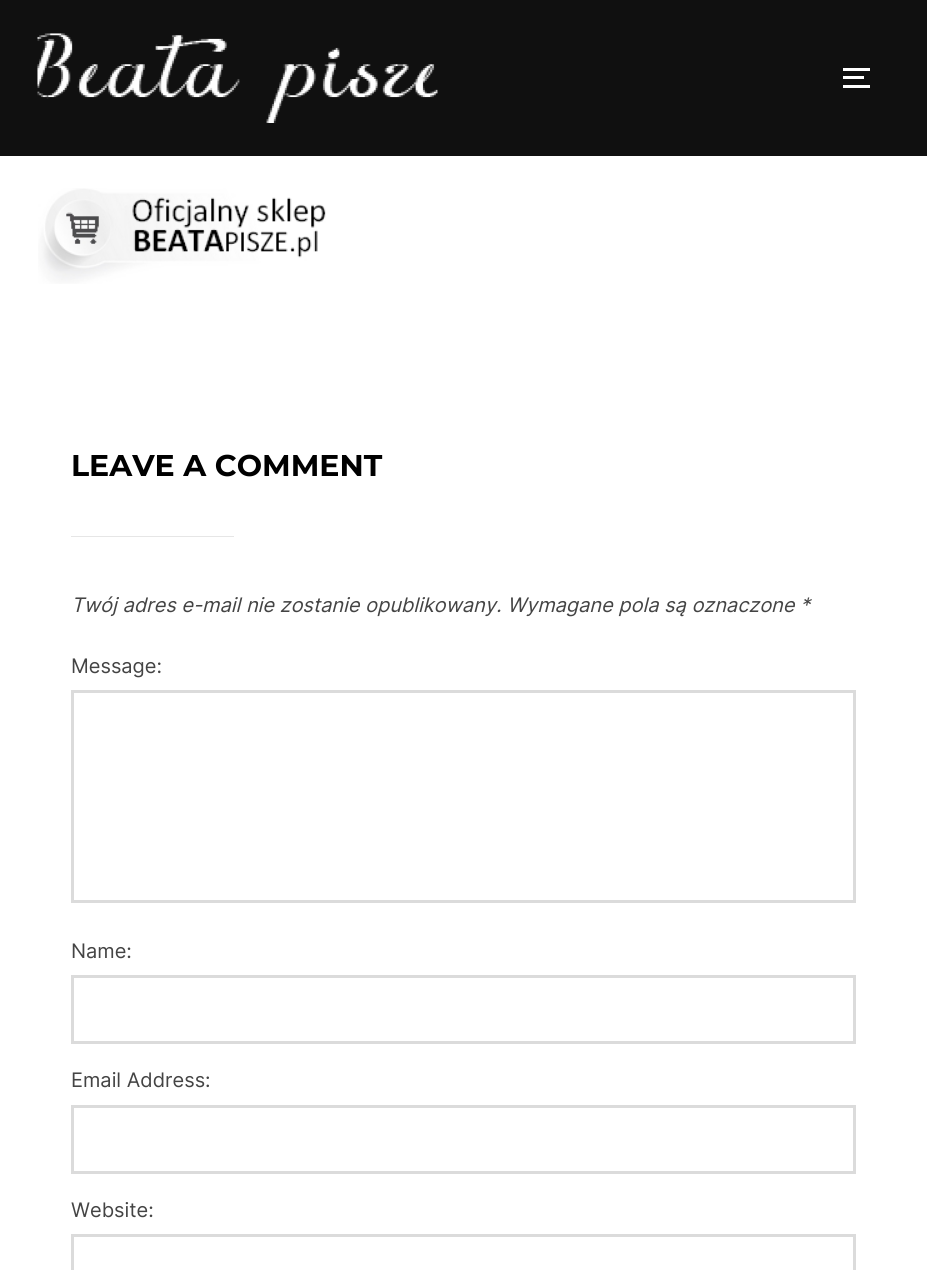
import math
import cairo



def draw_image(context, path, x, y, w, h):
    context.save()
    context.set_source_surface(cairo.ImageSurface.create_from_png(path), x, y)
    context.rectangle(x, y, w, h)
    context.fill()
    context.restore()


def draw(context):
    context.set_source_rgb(1, 1, 1)
    context.paint()
    context.set_source_rgb(16 / 255, 16 / 255, 16 / 255)
    context.rectangle(0, 0, 927, 156)
    context.fill()
    draw_image(context, "images/1.png", 37, 33, 401, 90)
    context.set_source_rgb(1, 1, 1)
    context.rectangle(843, 68, 27, 3)
    context.fill()
    context.rectangle(843, 76, 21, 3)
    context.fill()
    context.rectangle(843, 85, 27, 3)
    context.fill()
    draw_image(context, "images/2.png", 38, 188, 288, 96)
    context.set_source_rgb(230 / 255, 230 / 255, 230 / 255)
    context.rectangle(71, 536, 163, 1)
    context.fill()
    context.rectangle(72.5, 691.5, 782, 210)
    context.set_source_rgb(219 / 255, 219 / 255, 219 / 255)
    context.set_line_width(3)
    context.stroke()
    context.rectangle(72.5, 976.5, 782, 66)
    context.stroke()
    context.rectangle(72.5, 1106.5, 782, 66)
    context.stroke()
    context.rectangle(72.5, 1235.5, 782, 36)
    context.stroke()
    context.select_font_face("Montserrat", cairo.FontSlant.NORMAL, cairo.FontWeight.BOLD)
    context.set_font_size(30)
    context.set_source_rgb(0, 0, 0)
    context.move_to(71, 476)
    context.show_text("LEAVE A COMMENT")
    context.select_font_face("Inter", cairo.FontSlant.ITALIC)
    context.set_font_size(20)
    context.set_source_rgb(68 / 255, 68 / 255, 68 / 255)
    context.move_to(71, 612)
    context.show_text("Twój adres e-mail nie zostanie opublikowany. Wymagane pola są oznaczone *")
    context.select_font_face("Inter")
    context.move_to(71, 673)
    context.show_text("Message:")
    context.move_to(71, 958)
    context.show_text("Name:")
    context.move_to(71, 1087)
    context.show_text("Email Address:")
    context.move_to(71, 1217)
    context.show_text("Website:")


surface = cairo.ImageSurface(cairo.Format.RGB24, 927, 1270)
context = cairo.Context(surface)
options = cairo.FontOptions()
options.set_hint_metrics(cairo.HintMetrics.OFF)
options.set_hint_style(cairo.HintStyle.NONE)
context.set_font_options(options)
context.set_miter_limit(4)
draw(context)
surface.write_to_png("out.png")
